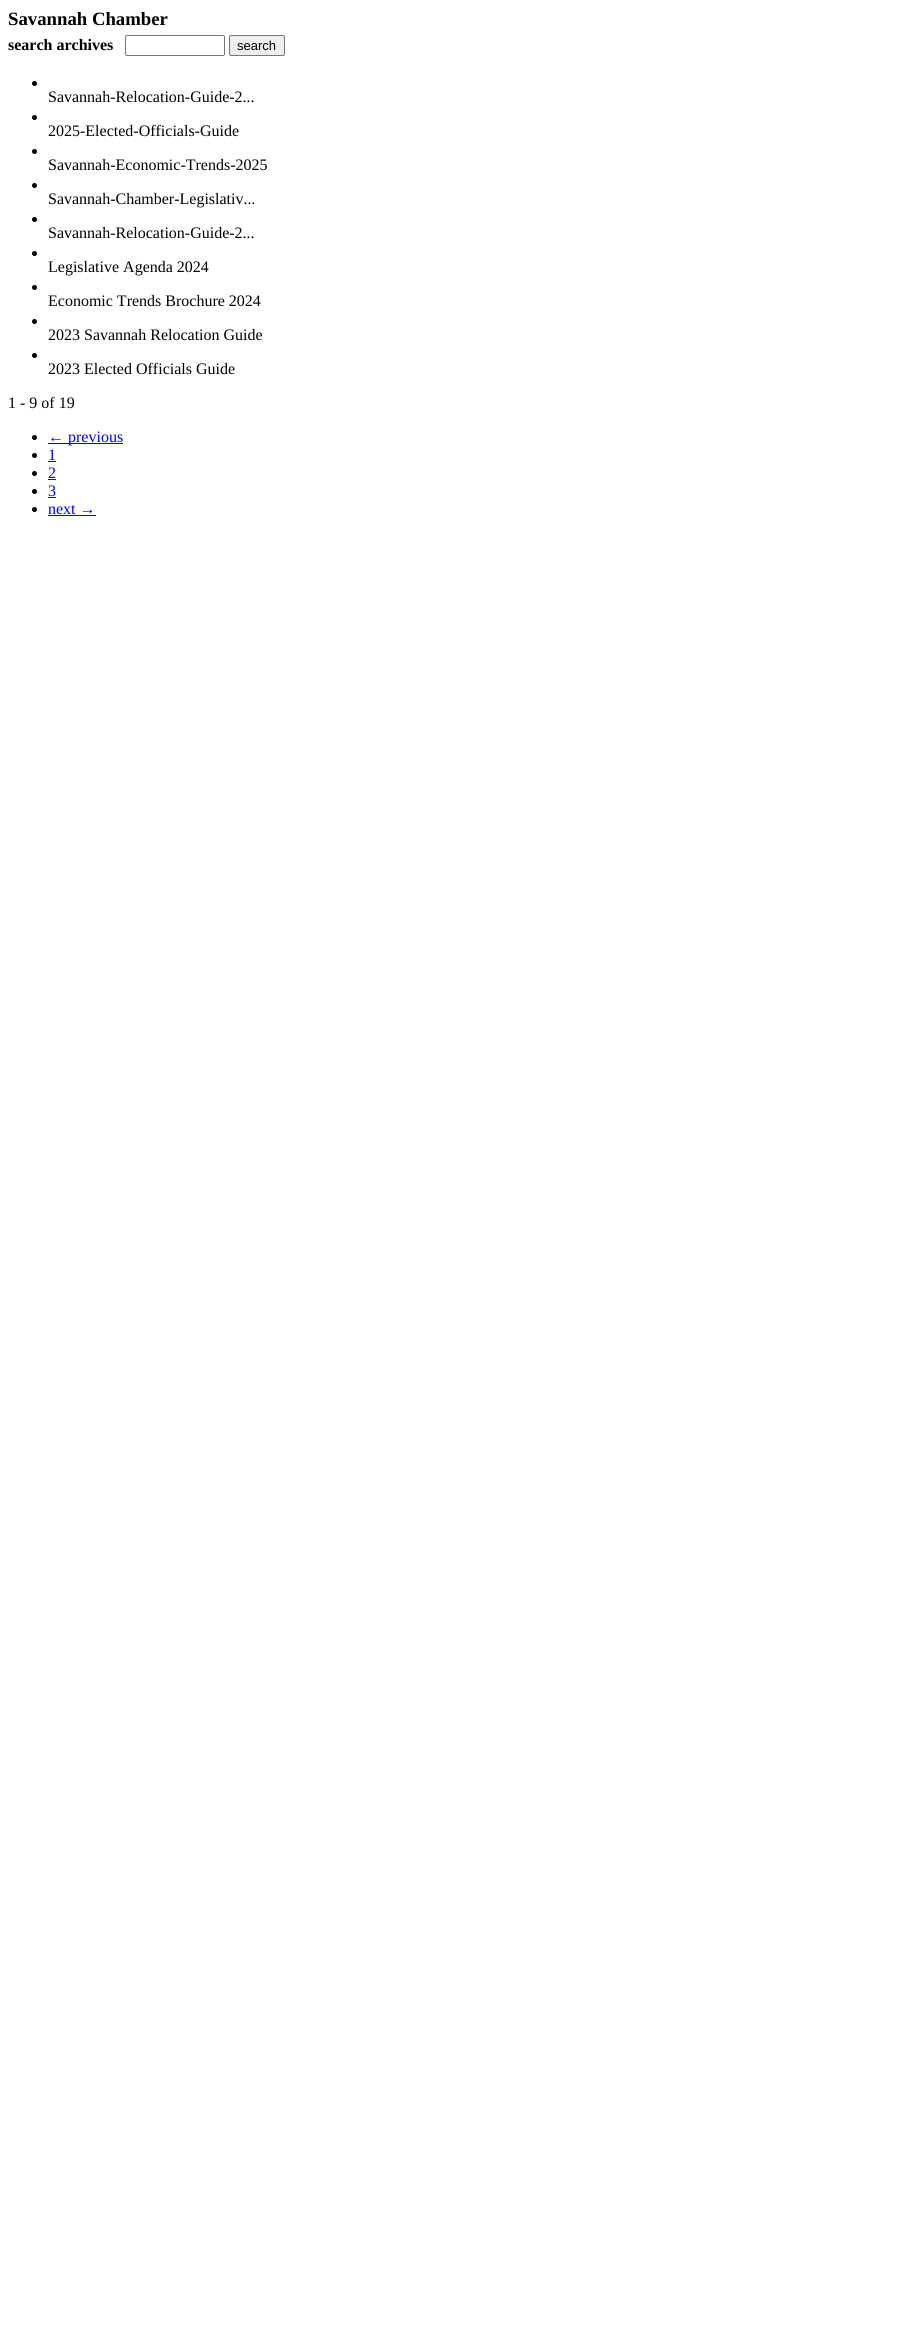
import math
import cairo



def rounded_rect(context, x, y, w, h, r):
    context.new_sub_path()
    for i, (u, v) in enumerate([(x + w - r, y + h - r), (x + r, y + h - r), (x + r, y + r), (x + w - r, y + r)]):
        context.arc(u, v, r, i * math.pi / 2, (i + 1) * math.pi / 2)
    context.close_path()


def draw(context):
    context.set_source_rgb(1, 1, 1)
    context.paint()
    rounded_rect(context, 125.5, 35.5, 99, 20, 1.5)
    context.set_source_rgb(118 / 255, 118 / 255, 118 / 255)
    context.set_line_width(1)
    context.stroke()
    context.set_source_rgb(239 / 255, 239 / 255, 239 / 255)
    rounded_rect(context, 229.5, 35.5, 55, 20, 1.5)
    context.fill_preserve()
    context.set_source_rgb(118 / 255, 118 / 255, 118 / 255)
    context.stroke()
    context.set_source_rgb(0, 0, 0)
    context.arc(34.5, 83.5, 2.5, 0, 2 * math.pi)
    context.fill()
    context.arc(34.5, 117.5, 2.5, 0, 2 * math.pi)
    context.fill()
    context.arc(34.5, 151.5, 2.5, 0, 2 * math.pi)
    context.fill()
    context.arc(34.5, 185.5, 2.5, 0, 2 * math.pi)
    context.fill()
    context.arc(34.5, 219.5, 2.5, 0, 2 * math.pi)
    context.fill()
    context.arc(34.5, 253.5, 2.5, 0, 2 * math.pi)
    context.fill()
    context.arc(34.5, 287.5, 2.5, 0, 2 * math.pi)
    context.fill()
    context.arc(34.5, 321.5, 2.5, 0, 2 * math.pi)
    context.fill()
    context.arc(34.5, 355.5, 2.5, 0, 2 * math.pi)
    context.fill()
    context.arc(34.5, 437.5, 2.5, 0, 2 * math.pi)
    context.fill()
    context.set_source_rgb(0, 0, 238 / 255)
    context.rectangle(48, 443, 75, 1)
    context.fill()
    context.set_source_rgb(0, 0, 0)
    context.arc(34.5, 455.5, 2.5, 0, 2 * math.pi)
    context.fill()
    context.set_source_rgb(0, 0, 238 / 255)
    context.rectangle(48, 461, 8, 1)
    context.fill()
    context.set_source_rgb(0, 0, 0)
    context.arc(34.5, 473.5, 2.5, 0, 2 * math.pi)
    context.fill()
    context.set_source_rgb(0, 0, 238 / 255)
    context.rectangle(48, 479, 8, 1)
    context.fill()
    context.set_source_rgb(0, 0, 0)
    context.arc(34.5, 491.5, 2.5, 0, 2 * math.pi)
    context.fill()
    context.set_source_rgb(0, 0, 238 / 255)
    context.rectangle(48, 497, 8, 1)
    context.fill()
    context.set_source_rgb(0, 0, 0)
    context.arc(34.5, 509.5, 2.5, 0, 2 * math.pi)
    context.fill()
    context.set_source_rgb(0, 0, 238 / 255)
    context.rectangle(48, 515, 48, 1)
    context.fill()
    context.select_font_face("Liberation Serif", cairo.FontSlant.NORMAL, cairo.FontWeight.BOLD)
    context.set_font_size(18.75)
    context.set_source_rgb(0, 0, 0)
    context.move_to(8, 25)
    context.show_text("Savannah Chamber")
    context.set_font_size(16)
    context.move_to(8, 50)
    context.show_text("search archives")
    context.select_font_face("Liberation Sans")
    context.set_font_size(13)
    context.move_to(237, 50)
    context.show_text("search")
    context.select_font_face("Liberation Serif")
    context.set_font_size(16)
    context.move_to(48, 102)
    context.show_text("Savannah-Relocation-Guide-2...")
    context.move_to(48, 136)
    context.show_text("2025-Elected-Officials-Guide")
    context.move_to(48, 170)
    context.show_text("Savannah-Economic-Trends-2025")
    context.move_to(48, 204)
    context.show_text("Savannah-Chamber-Legislativ...")
    context.move_to(48, 238)
    context.show_text("Savannah-Relocation-Guide-2...")
    context.move_to(48, 272)
    context.show_text("Legislative Agenda 2024")
    context.move_to(48, 306)
    context.show_text("Economic Trends Brochure 2024")
    context.move_to(48, 340)
    context.show_text("2023 Savannah Relocation Guide")
    context.move_to(48, 374)
    context.show_text("2023 Elected Officials Guide")
    context.move_to(8, 408)
    context.show_text("1 - 9 of 19")
    context.set_source_rgb(0, 0, 238 / 255)
    context.move_to(48, 442)
    context.show_text("← previous")
    context.move_to(48, 460)
    context.show_text("1")
    context.move_to(48, 478)
    context.show_text("2")
    context.move_to(48, 496)
    context.show_text("3")
    context.move_to(48, 514)
    context.show_text("next →")


surface = cairo.ImageSurface(cairo.Format.RGB24, 919, 2352)
context = cairo.Context(surface)
options = cairo.FontOptions()
options.set_hint_metrics(cairo.HintMetrics.OFF)
options.set_hint_style(cairo.HintStyle.NONE)
context.set_font_options(options)
context.set_miter_limit(4)
draw(context)
surface.write_to_png("out.png")
